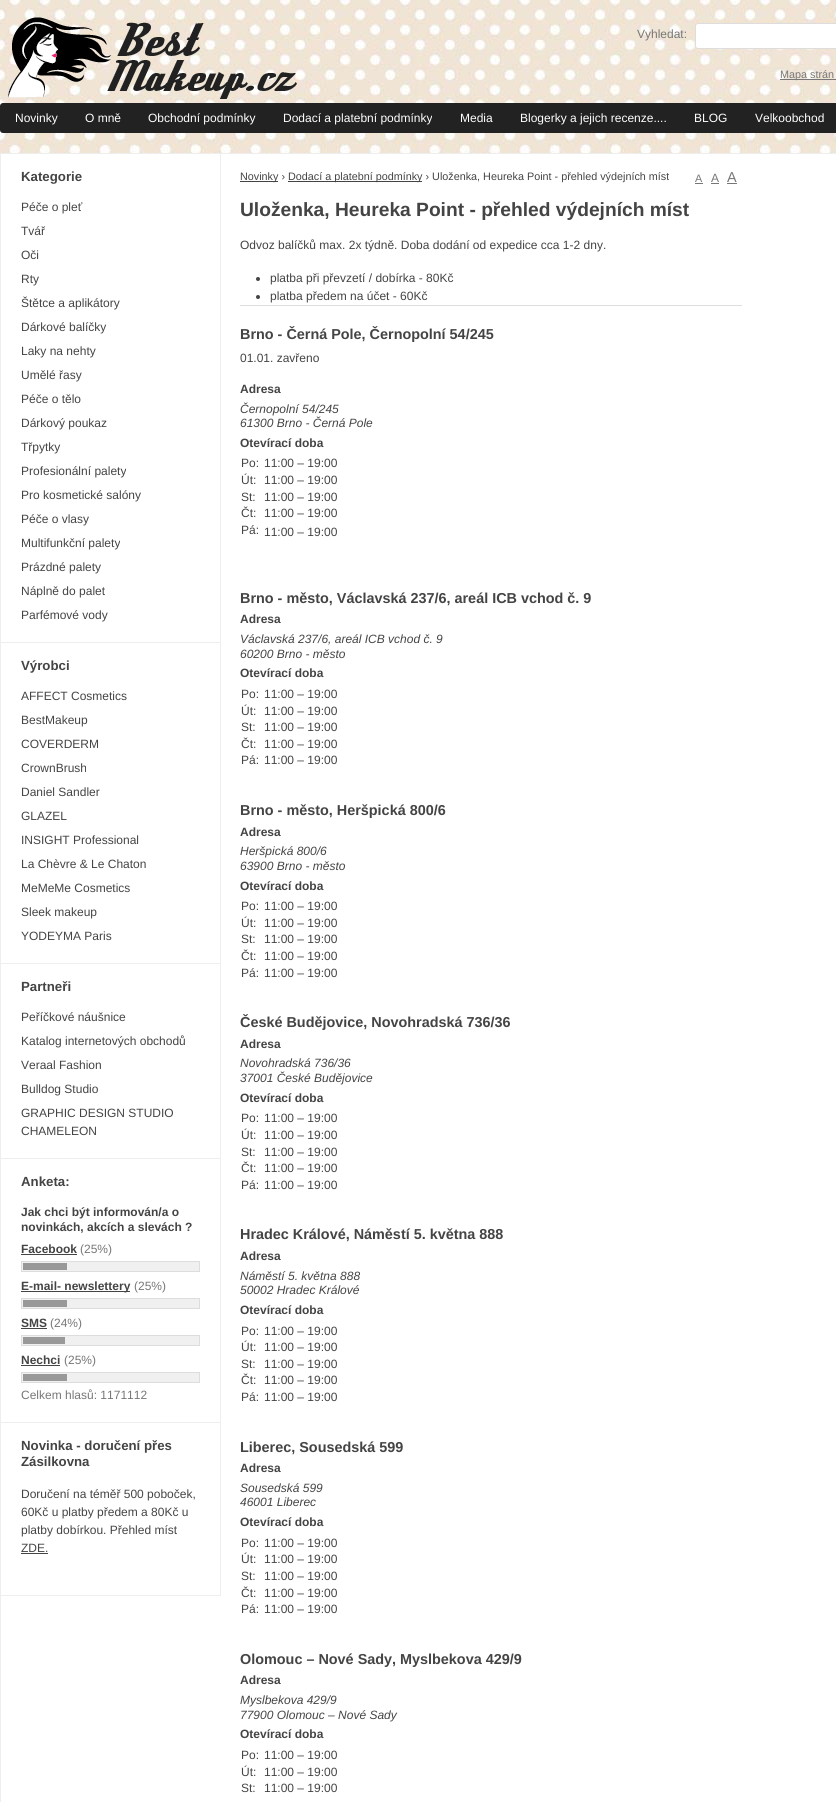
import math
import cairo



def rounded_rect(context, x, y, w, h, r):
    context.new_sub_path()
    for i, (u, v) in enumerate([(x + w - r, y + h - r), (x + r, y + h - r), (x + r, y + r), (x + w - r, y + r)]):
        context.arc(u, v, r, i * math.pi / 2, (i + 1) * math.pi / 2)
    context.close_path()


def draw_image(context, path, x, y, w, h):
    context.save()
    context.set_source_surface(cairo.ImageSurface.create_from_png(path), x, y)
    context.rectangle(x, y, w, h)
    context.fill()
    context.restore()


def draw(context):
    context.set_source_rgb(1, 1, 1)
    context.paint()
    draw_image(context, "images/1.png", 0, 0, 836, 153)
    draw_image(context, "images/2.png", 8, 17, 289, 82)
    context.set_source_rgb(1, 1, 1)
    rounded_rect(context, 695.5, 23.5, 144, 25, 2.5)
    context.fill_preserve()
    context.set_source_rgb(221 / 255, 221 / 255, 221 / 255)
    context.set_line_width(1)
    context.stroke()
    context.set_source_rgb(119 / 255, 119 / 255, 119 / 255)
    context.rectangle(780, 79, 56, 1)
    context.fill()
    context.set_source_rgb(34 / 255, 34 / 255, 34 / 255)
    rounded_rect(context, 0, 103, 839, 30, 3)
    context.fill()
    context.rectangle(0.5, 153.5, 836, 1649)
    context.set_source_rgb(238 / 255, 238 / 255, 238 / 255)
    context.stroke()
    context.rectangle(220, 154, 1, 1442)
    context.fill()
    context.rectangle(1, 642, 220, 1)
    context.fill()
    context.rectangle(1, 963, 220, 1)
    context.fill()
    context.rectangle(1, 1158, 220, 1)
    context.fill()
    context.rectangle(1, 1422, 220, 1)
    context.fill()
    context.set_source_rgb(68 / 255, 68 / 255, 68 / 255)
    context.rectangle(21, 1254, 56, 1)
    context.fill()
    context.set_source_rgb(240 / 255, 240 / 255, 240 / 255)
    context.rectangle(21.5, 1261.5, 178, 10)
    context.fill_preserve()
    context.set_source_rgb(221 / 255, 221 / 255, 221 / 255)
    context.stroke()
    context.set_source_rgb(153 / 255, 153 / 255, 153 / 255)
    context.rectangle(23, 1263, 44, 7)
    context.fill()
    context.set_source_rgb(68 / 255, 68 / 255, 68 / 255)
    context.rectangle(21, 1291, 109, 1)
    context.fill()
    context.set_source_rgb(240 / 255, 240 / 255, 240 / 255)
    context.rectangle(21.5, 1298.5, 178, 10)
    context.fill_preserve()
    context.set_source_rgb(221 / 255, 221 / 255, 221 / 255)
    context.stroke()
    context.set_source_rgb(153 / 255, 153 / 255, 153 / 255)
    context.rectangle(23, 1300, 44, 7)
    context.fill()
    context.set_source_rgb(68 / 255, 68 / 255, 68 / 255)
    context.rectangle(21, 1328, 26, 1)
    context.fill()
    context.set_source_rgb(240 / 255, 240 / 255, 240 / 255)
    context.rectangle(21.5, 1335.5, 178, 10)
    context.fill_preserve()
    context.set_source_rgb(221 / 255, 221 / 255, 221 / 255)
    context.stroke()
    context.set_source_rgb(153 / 255, 153 / 255, 153 / 255)
    context.rectangle(23, 1337, 42, 7)
    context.fill()
    context.set_source_rgb(68 / 255, 68 / 255, 68 / 255)
    context.rectangle(21, 1365, 39, 1)
    context.fill()
    context.set_source_rgb(240 / 255, 240 / 255, 240 / 255)
    context.rectangle(21.5, 1372.5, 178, 10)
    context.fill_preserve()
    context.set_source_rgb(221 / 255, 221 / 255, 221 / 255)
    context.stroke()
    context.set_source_rgb(153 / 255, 153 / 255, 153 / 255)
    context.rectangle(23, 1374, 44, 7)
    context.fill()
    context.set_source_rgb(238 / 255, 238 / 255, 238 / 255)
    context.rectangle(1, 1595, 220, 1)
    context.fill()
    context.set_source_rgb(68 / 255, 68 / 255, 68 / 255)
    context.rectangle(21, 1553, 27, 1)
    context.fill()
    context.rectangle(240, 181, 38, 1)
    context.fill()
    context.rectangle(288, 181, 134, 1)
    context.fill()
    context.set_source_rgb(119 / 255, 119 / 255, 119 / 255)
    context.rectangle(695, 183, 8, 1)
    context.fill()
    context.rectangle(711, 183, 8, 1)
    context.fill()
    context.rectangle(727, 183, 10, 1)
    context.fill()
    context.set_source_rgb(221 / 255, 221 / 255, 221 / 255)
    context.rectangle(240, 305, 502, 1)
    context.fill()
    context.set_source_rgb(68 / 255, 68 / 255, 68 / 255)
    context.arc(258, 279, 2, 0, 2 * math.pi)
    context.fill()
    context.arc(258, 297, 2, 0, 2 * math.pi)
    context.fill()
    context.select_font_face("Liberation Sans")
    context.set_font_size(12)
    context.set_source_rgb(119 / 255, 119 / 255, 119 / 255)
    context.move_to(637, 38)
    context.show_text("Vyhledat:")
    context.set_font_size(10.8)
    context.move_to(780, 78)
    context.show_text("Mapa strán")
    context.set_font_size(12)
    context.set_source_rgb(1, 1, 1)
    context.move_to(15, 122)
    context.show_text("Novinky")
    context.move_to(85, 122)
    context.show_text("O mně")
    context.move_to(148, 122)
    context.show_text("Obchodní podmínky")
    context.move_to(283, 122)
    context.show_text("Dodací a platební podmínky")
    context.move_to(460, 122)
    context.show_text("Media")
    context.move_to(520, 122)
    context.show_text("Blogerky a jejich recenze....")
    context.move_to(694, 122)
    context.show_text("BLOG")
    context.move_to(755, 122)
    context.show_text("Velkoobchod")
    context.select_font_face("Liberation Sans", cairo.FontSlant.NORMAL, cairo.FontWeight.BOLD)
    context.set_font_size(13.25)
    context.set_source_rgb(68 / 255, 68 / 255, 68 / 255)
    context.move_to(21, 181)
    context.show_text("Kategorie")
    context.select_font_face("Liberation Sans")
    context.set_font_size(12)
    context.move_to(21, 211)
    context.show_text("Péče o pleť")
    context.move_to(21, 235)
    context.show_text("Tvář")
    context.move_to(21, 259)
    context.show_text("Oči")
    context.move_to(21, 283)
    context.show_text("Rty")
    context.move_to(21, 307)
    context.show_text("Štětce a aplikátory")
    context.move_to(21, 331)
    context.show_text("Dárkové balíčky")
    context.move_to(21, 355)
    context.show_text("Laky na nehty")
    context.move_to(21, 379)
    context.show_text("Umělé řasy")
    context.move_to(21, 403)
    context.show_text("Péče o tělo")
    context.move_to(21, 427)
    context.show_text("Dárkový poukaz")
    context.move_to(21, 451)
    context.show_text("Třpytky")
    context.move_to(21, 475)
    context.show_text("Profesionální palety")
    context.move_to(21, 499)
    context.show_text("Pro kosmetické salóny")
    context.move_to(21, 523)
    context.show_text("Péče o vlasy")
    context.move_to(21, 547)
    context.show_text("Multifunkční palety")
    context.move_to(21, 571)
    context.show_text("Prázdné palety")
    context.move_to(21, 595)
    context.show_text("Náplně do palet")
    context.move_to(21, 619)
    context.show_text("Parfémové vody")
    context.select_font_face("Liberation Sans", cairo.FontSlant.NORMAL, cairo.FontWeight.BOLD)
    context.set_font_size(13.25)
    context.move_to(21, 670)
    context.show_text("Výrobci")
    context.select_font_face("Liberation Sans")
    context.set_font_size(12)
    context.move_to(21, 700)
    context.show_text("AFFECT Cosmetics")
    context.move_to(21, 724)
    context.show_text("BestMakeup")
    context.move_to(21, 748)
    context.show_text("COVERDERM")
    context.move_to(21, 772)
    context.show_text("CrownBrush")
    context.move_to(21, 796)
    context.show_text("Daniel Sandler")
    context.move_to(21, 820)
    context.show_text("GLAZEL")
    context.move_to(21, 844)
    context.show_text("INSIGHT Professional")
    context.move_to(21, 868)
    context.show_text("La Chèvre & Le Chaton")
    context.move_to(21, 892)
    context.show_text("MeMeMe Cosmetics")
    context.move_to(21, 916)
    context.show_text("Sleek makeup")
    context.move_to(21, 940)
    context.show_text("YODEYMA Paris")
    context.select_font_face("Liberation Sans", cairo.FontSlant.NORMAL, cairo.FontWeight.BOLD)
    context.set_font_size(13.25)
    context.move_to(21, 991)
    context.show_text("Partneři")
    context.select_font_face("Liberation Sans")
    context.set_font_size(12)
    context.move_to(21, 1021)
    context.show_text("Peříčkové náušnice")
    context.move_to(21, 1045)
    context.show_text("Katalog internetových obchodů")
    context.move_to(21, 1069)
    context.show_text("Veraal Fashion")
    context.move_to(21, 1093)
    context.show_text("Bulldog Studio")
    context.move_to(21, 1117)
    context.show_text("GRAPHIC DESIGN STUDIO")
    context.move_to(21, 1135)
    context.show_text("CHAMELEON")
    context.select_font_face("Liberation Sans", cairo.FontSlant.NORMAL, cairo.FontWeight.BOLD)
    context.set_font_size(13.25)
    context.move_to(21, 1186)
    context.show_text("Anketa:")
    context.set_font_size(12)
    context.move_to(21, 1216)
    context.show_text("Jak chci být informován/a o")
    context.move_to(21, 1231)
    context.show_text("novinkách, akcích a slevách ?")
    context.move_to(21, 1253)
    context.show_text("Facebook")
    context.select_font_face("Liberation Sans")
    context.set_source_rgb(119 / 255, 119 / 255, 119 / 255)
    context.move_to(80, 1253)
    context.show_text("(25%)")
    context.select_font_face("Liberation Sans", cairo.FontSlant.NORMAL, cairo.FontWeight.BOLD)
    context.set_source_rgb(68 / 255, 68 / 255, 68 / 255)
    context.move_to(21, 1290)
    context.show_text("E-mail- newslettery")
    context.select_font_face("Liberation Sans")
    context.set_source_rgb(119 / 255, 119 / 255, 119 / 255)
    context.move_to(134, 1290)
    context.show_text("(25%)")
    context.select_font_face("Liberation Sans", cairo.FontSlant.NORMAL, cairo.FontWeight.BOLD)
    context.set_source_rgb(68 / 255, 68 / 255, 68 / 255)
    context.move_to(21, 1327)
    context.show_text("SMS")
    context.select_font_face("Liberation Sans")
    context.set_source_rgb(119 / 255, 119 / 255, 119 / 255)
    context.move_to(50, 1327)
    context.show_text("(24%)")
    context.select_font_face("Liberation Sans", cairo.FontSlant.NORMAL, cairo.FontWeight.BOLD)
    context.set_source_rgb(68 / 255, 68 / 255, 68 / 255)
    context.move_to(21, 1364)
    context.show_text("Nechci")
    context.select_font_face("Liberation Sans")
    context.set_source_rgb(119 / 255, 119 / 255, 119 / 255)
    context.move_to(64, 1364)
    context.show_text("(25%)")
    context.move_to(21, 1399)
    context.show_text("Celkem hlasů: 1171112")
    context.select_font_face("Liberation Sans", cairo.FontSlant.NORMAL, cairo.FontWeight.BOLD)
    context.set_font_size(13.25)
    context.set_source_rgb(68 / 255, 68 / 255, 68 / 255)
    context.move_to(21, 1450)
    context.show_text("Novinka - doručení přes")
    context.move_to(21, 1466)
    context.show_text("Zásilkovna")
    context.select_font_face("Liberation Sans")
    context.set_font_size(12)
    context.move_to(21, 1498)
    context.show_text("Doručení na téměř 500 poboček,")
    context.move_to(21, 1516)
    context.show_text("60Kč u platby předem a 80Kč u")
    context.move_to(21, 1534)
    context.show_text("platby dobírkou. Přehled míst")
    context.move_to(21, 1552)
    context.show_text("ZDE.")
    context.set_font_size(10.8)
    context.move_to(240, 180)
    context.show_text("Novinky ›")
    context.move_to(288, 180)
    context.show_text("Dodací a platební podmínky › Uloženka, Heureka Point - přehled výdejních míst")
    context.set_source_rgb(119 / 255, 119 / 255, 119 / 255)
    context.move_to(695, 182)
    context.show_text("A")
    context.set_font_size(12)
    context.move_to(711, 182)
    context.show_text("A")
    context.set_font_size(14.4)
    context.move_to(727, 182)
    context.show_text("A")
    context.select_font_face("Liberation Sans", cairo.FontSlant.NORMAL, cairo.FontWeight.BOLD)
    context.set_font_size(19.2)
    context.set_source_rgb(68 / 255, 68 / 255, 68 / 255)
    context.move_to(240, 216)
    context.show_text("Uloženka, Heureka Point - přehled výdejních míst")
    context.select_font_face("Liberation Sans")
    context.set_font_size(12)
    context.move_to(240, 249)
    context.show_text("Odvoz balíčků max. 2x týdně. Doba dodání od expedice cca 1-2 dny.")
    context.move_to(270, 282)
    context.show_text("platba při převzetí / dobírka - 80Kč")
    context.move_to(270, 300)
    context.show_text("platba předem na účet - 60Kč")
    context.select_font_face("Liberation Sans", cairo.FontSlant.NORMAL, cairo.FontWeight.BOLD)
    context.set_font_size(14.4)
    context.move_to(240, 339)
    context.show_text("Brno - Černá Pole, Černopolní 54/245")
    context.select_font_face("Liberation Sans")
    context.set_font_size(12)
    context.move_to(240, 362)
    context.show_text("01.01. zavřeno")
    context.select_font_face("Liberation Sans", cairo.FontSlant.NORMAL, cairo.FontWeight.BOLD)
    context.move_to(240, 393)
    context.show_text("Adresa")
    context.select_font_face("Liberation Sans", cairo.FontSlant.ITALIC)
    context.move_to(240, 413)
    context.show_text("Černopolní 54/245")
    context.move_to(240, 427)
    context.show_text("61300 Brno - Černá Pole")
    context.select_font_face("Liberation Sans", cairo.FontSlant.NORMAL, cairo.FontWeight.BOLD)
    context.move_to(240, 447)
    context.show_text("Otevírací doba")
    context.select_font_face("Liberation Sans")
    context.move_to(241, 467)
    context.show_text("Po:")
    context.move_to(264, 467)
    context.show_text("11:00 – 19:00")
    context.move_to(241, 484)
    context.show_text("Út:")
    context.move_to(264, 484)
    context.show_text("11:00 – 19:00")
    context.move_to(241, 501)
    context.show_text("St:")
    context.move_to(264, 501)
    context.show_text("11:00 – 19:00")
    context.move_to(241, 517)
    context.show_text("Čt:")
    context.move_to(264, 517)
    context.show_text("11:00 – 19:00")
    context.move_to(241, 534)
    context.show_text("Pá:")
    context.move_to(264, 536)
    context.show_text("11:00 – 19:00")
    context.select_font_face("Liberation Sans", cairo.FontSlant.NORMAL, cairo.FontWeight.BOLD)
    context.set_font_size(14.4)
    context.move_to(240, 603)
    context.show_text("Brno - město, Václavská 237/6, areál ICB vchod č. 9")
    context.set_font_size(12)
    context.move_to(240, 623)
    context.show_text("Adresa")
    context.select_font_face("Liberation Sans", cairo.FontSlant.ITALIC)
    context.move_to(240, 643)
    context.show_text("Václavská 237/6, areál ICB vchod č. 9")
    context.move_to(240, 658)
    context.show_text("60200 Brno - město")
    context.select_font_face("Liberation Sans", cairo.FontSlant.NORMAL, cairo.FontWeight.BOLD)
    context.move_to(240, 677)
    context.show_text("Otevírací doba")
    context.select_font_face("Liberation Sans")
    context.move_to(241, 698)
    context.show_text("Po:")
    context.move_to(264, 698)
    context.show_text("11:00 – 19:00")
    context.move_to(241, 715)
    context.show_text("Út:")
    context.move_to(264, 715)
    context.show_text("11:00 – 19:00")
    context.move_to(241, 731)
    context.show_text("St:")
    context.move_to(264, 731)
    context.show_text("11:00 – 19:00")
    context.move_to(241, 748)
    context.show_text("Čt:")
    context.move_to(264, 748)
    context.show_text("11:00 – 19:00")
    context.move_to(241, 764)
    context.show_text("Pá:")
    context.move_to(264, 764)
    context.show_text("11:00 – 19:00")
    context.select_font_face("Liberation Sans", cairo.FontSlant.NORMAL, cairo.FontWeight.BOLD)
    context.set_font_size(14.4)
    context.move_to(240, 815)
    context.show_text("Brno - město, Heršpická 800/6")
    context.set_font_size(12)
    context.move_to(240, 836)
    context.show_text("Adresa")
    context.select_font_face("Liberation Sans", cairo.FontSlant.ITALIC)
    context.move_to(240, 855)
    context.show_text("Heršpická 800/6")
    context.move_to(240, 870)
    context.show_text("63900 Brno - město")
    context.select_font_face("Liberation Sans", cairo.FontSlant.NORMAL, cairo.FontWeight.BOLD)
    context.move_to(240, 890)
    context.show_text("Otevírací doba")
    context.select_font_face("Liberation Sans")
    context.move_to(241, 910)
    context.show_text("Po:")
    context.move_to(264, 910)
    context.show_text("11:00 – 19:00")
    context.move_to(241, 927)
    context.show_text("Út:")
    context.move_to(264, 927)
    context.show_text("11:00 – 19:00")
    context.move_to(241, 943)
    context.show_text("St:")
    context.move_to(264, 943)
    context.show_text("11:00 – 19:00")
    context.move_to(241, 960)
    context.show_text("Čt:")
    context.move_to(264, 960)
    context.show_text("11:00 – 19:00")
    context.move_to(241, 977)
    context.show_text("Pá:")
    context.move_to(264, 977)
    context.show_text("11:00 – 19:00")
    context.select_font_face("Liberation Sans", cairo.FontSlant.NORMAL, cairo.FontWeight.BOLD)
    context.set_font_size(14.4)
    context.move_to(240, 1027)
    context.show_text("České Budějovice, Novohradská 736/36")
    context.set_font_size(12)
    context.move_to(240, 1048)
    context.show_text("Adresa")
    context.select_font_face("Liberation Sans", cairo.FontSlant.ITALIC)
    context.move_to(240, 1067)
    context.show_text("Novohradská 736/36")
    context.move_to(240, 1082)
    context.show_text("37001 České Budějovice")
    context.select_font_face("Liberation Sans", cairo.FontSlant.NORMAL, cairo.FontWeight.BOLD)
    context.move_to(240, 1102)
    context.show_text("Otevírací doba")
    context.select_font_face("Liberation Sans")
    context.move_to(241, 1122)
    context.show_text("Po:")
    context.move_to(264, 1122)
    context.show_text("11:00 – 19:00")
    context.move_to(241, 1139)
    context.show_text("Út:")
    context.move_to(264, 1139)
    context.show_text("11:00 – 19:00")
    context.move_to(241, 1156)
    context.show_text("St:")
    context.move_to(264, 1156)
    context.show_text("11:00 – 19:00")
    context.move_to(241, 1172)
    context.show_text("Čt:")
    context.move_to(264, 1172)
    context.show_text("11:00 – 19:00")
    context.move_to(241, 1189)
    context.show_text("Pá:")
    context.move_to(264, 1189)
    context.show_text("11:00 – 19:00")
    context.select_font_face("Liberation Sans", cairo.FontSlant.NORMAL, cairo.FontWeight.BOLD)
    context.set_font_size(14.4)
    context.move_to(240, 1239)
    context.show_text("Hradec Králové, Náměstí 5. května 888")
    context.set_font_size(12)
    context.move_to(240, 1260)
    context.show_text("Adresa")
    context.select_font_face("Liberation Sans", cairo.FontSlant.ITALIC)
    context.move_to(240, 1280)
    context.show_text("Náměstí 5. května 888")
    context.move_to(240, 1294)
    context.show_text("50002 Hradec Králové")
    context.select_font_face("Liberation Sans", cairo.FontSlant.NORMAL, cairo.FontWeight.BOLD)
    context.move_to(240, 1314)
    context.show_text("Otevírací doba")
    context.select_font_face("Liberation Sans")
    context.move_to(241, 1335)
    context.show_text("Po:")
    context.move_to(264, 1335)
    context.show_text("11:00 – 19:00")
    context.move_to(241, 1351)
    context.show_text("Út:")
    context.move_to(264, 1351)
    context.show_text("11:00 – 19:00")
    context.move_to(241, 1368)
    context.show_text("St:")
    context.move_to(264, 1368)
    context.show_text("11:00 – 19:00")
    context.move_to(241, 1384)
    context.show_text("Čt:")
    context.move_to(264, 1384)
    context.show_text("11:00 – 19:00")
    context.move_to(241, 1401)
    context.show_text("Pá:")
    context.move_to(264, 1401)
    context.show_text("11:00 – 19:00")
    context.select_font_face("Liberation Sans", cairo.FontSlant.NORMAL, cairo.FontWeight.BOLD)
    context.set_font_size(14.4)
    context.move_to(240, 1452)
    context.show_text("Liberec, Sousedská 599")
    context.set_font_size(12)
    context.move_to(240, 1472)
    context.show_text("Adresa")
    context.select_font_face("Liberation Sans", cairo.FontSlant.ITALIC)
    context.move_to(240, 1492)
    context.show_text("Sousedská 599")
    context.move_to(240, 1506)
    context.show_text("46001 Liberec")
    context.select_font_face("Liberation Sans", cairo.FontSlant.NORMAL, cairo.FontWeight.BOLD)
    context.move_to(240, 1526)
    context.show_text("Otevírací doba")
    context.select_font_face("Liberation Sans")
    context.move_to(241, 1547)
    context.show_text("Po:")
    context.move_to(264, 1547)
    context.show_text("11:00 – 19:00")
    context.move_to(241, 1563)
    context.show_text("Út:")
    context.move_to(264, 1563)
    context.show_text("11:00 – 19:00")
    context.move_to(241, 1580)
    context.show_text("St:")
    context.move_to(264, 1580)
    context.show_text("11:00 – 19:00")
    context.move_to(241, 1597)
    context.show_text("Čt:")
    context.move_to(264, 1597)
    context.show_text("11:00 – 19:00")
    context.move_to(241, 1613)
    context.show_text("Pá:")
    context.move_to(264, 1613)
    context.show_text("11:00 – 19:00")
    context.select_font_face("Liberation Sans", cairo.FontSlant.NORMAL, cairo.FontWeight.BOLD)
    context.set_font_size(14.4)
    context.move_to(240, 1664)
    context.show_text("Olomouc – Nové Sady, Myslbekova 429/9")
    context.set_font_size(12)
    context.move_to(240, 1684)
    context.show_text("Adresa")
    context.select_font_face("Liberation Sans", cairo.FontSlant.ITALIC)
    context.move_to(240, 1704)
    context.show_text("Myslbekova 429/9")
    context.move_to(240, 1719)
    context.show_text("77900 Olomouc – Nové Sady")
    context.select_font_face("Liberation Sans", cairo.FontSlant.NORMAL, cairo.FontWeight.BOLD)
    context.move_to(240, 1738)
    context.show_text("Otevírací doba")
    context.select_font_face("Liberation Sans")
    context.move_to(241, 1759)
    context.show_text("Po:")
    context.move_to(264, 1759)
    context.show_text("11:00 – 19:00")
    context.move_to(241, 1776)
    context.show_text("Út:")
    context.move_to(264, 1776)
    context.show_text("11:00 – 19:00")
    context.move_to(241, 1792)
    context.show_text("St:")
    context.move_to(264, 1792)
    context.show_text("11:00 – 19:00")


surface = cairo.ImageSurface(cairo.Format.RGB24, 836, 1802)
context = cairo.Context(surface)
options = cairo.FontOptions()
options.set_hint_metrics(cairo.HintMetrics.OFF)
options.set_hint_style(cairo.HintStyle.NONE)
context.set_font_options(options)
context.set_miter_limit(4)
draw(context)
surface.write_to_png("out.png")
